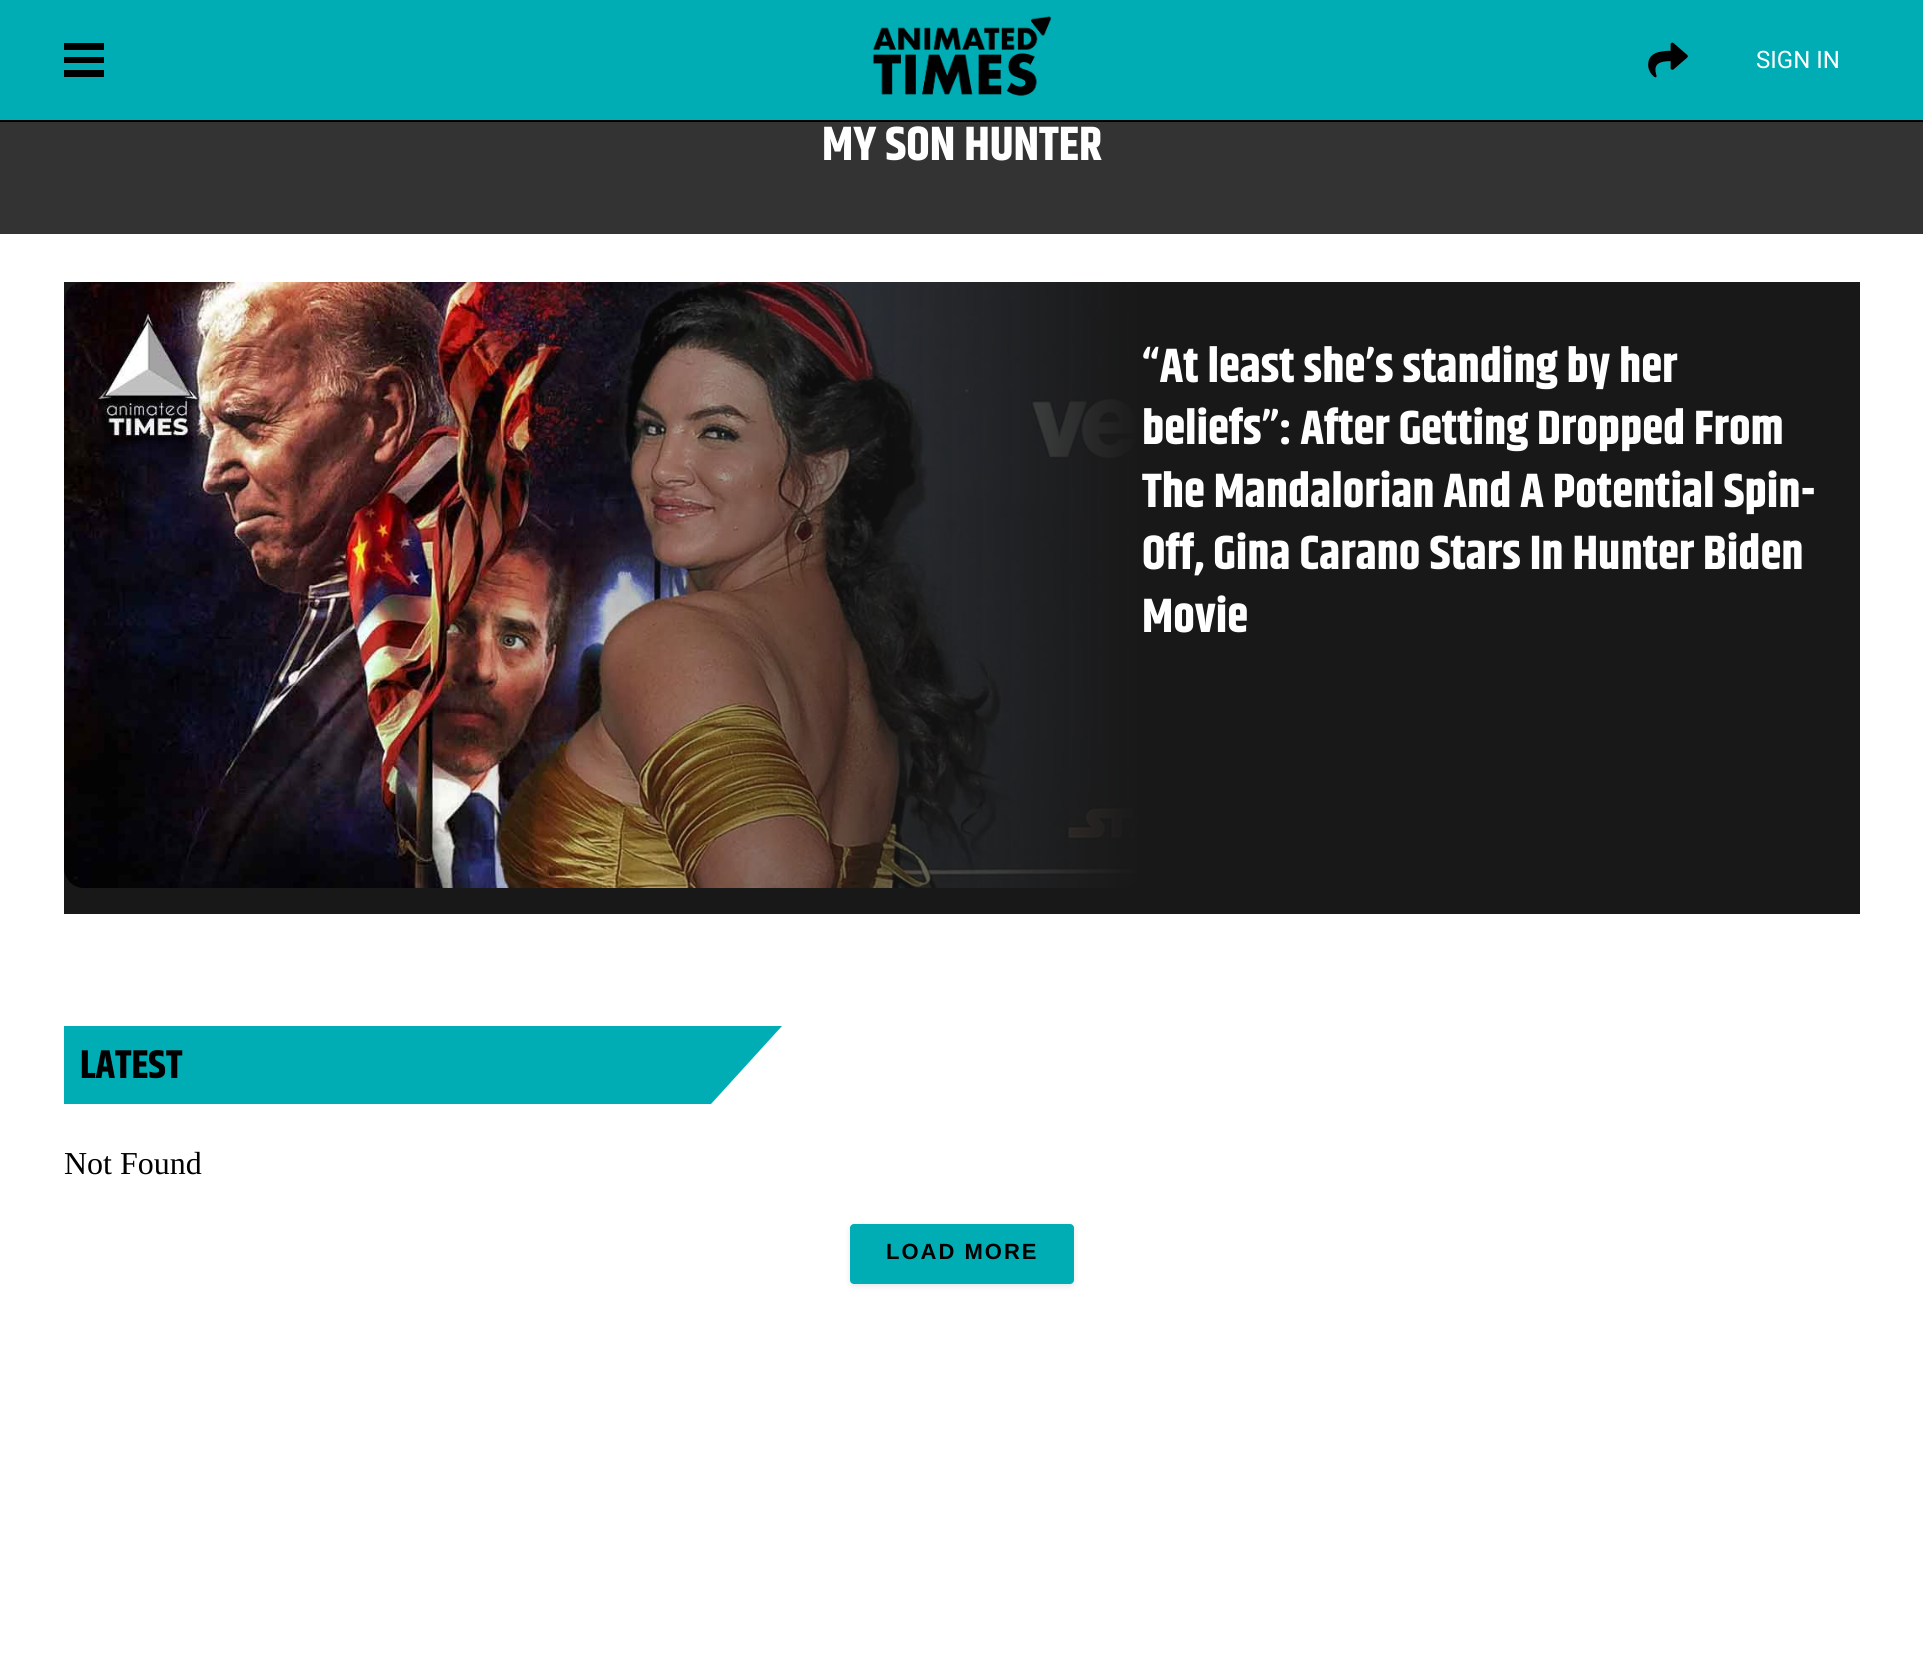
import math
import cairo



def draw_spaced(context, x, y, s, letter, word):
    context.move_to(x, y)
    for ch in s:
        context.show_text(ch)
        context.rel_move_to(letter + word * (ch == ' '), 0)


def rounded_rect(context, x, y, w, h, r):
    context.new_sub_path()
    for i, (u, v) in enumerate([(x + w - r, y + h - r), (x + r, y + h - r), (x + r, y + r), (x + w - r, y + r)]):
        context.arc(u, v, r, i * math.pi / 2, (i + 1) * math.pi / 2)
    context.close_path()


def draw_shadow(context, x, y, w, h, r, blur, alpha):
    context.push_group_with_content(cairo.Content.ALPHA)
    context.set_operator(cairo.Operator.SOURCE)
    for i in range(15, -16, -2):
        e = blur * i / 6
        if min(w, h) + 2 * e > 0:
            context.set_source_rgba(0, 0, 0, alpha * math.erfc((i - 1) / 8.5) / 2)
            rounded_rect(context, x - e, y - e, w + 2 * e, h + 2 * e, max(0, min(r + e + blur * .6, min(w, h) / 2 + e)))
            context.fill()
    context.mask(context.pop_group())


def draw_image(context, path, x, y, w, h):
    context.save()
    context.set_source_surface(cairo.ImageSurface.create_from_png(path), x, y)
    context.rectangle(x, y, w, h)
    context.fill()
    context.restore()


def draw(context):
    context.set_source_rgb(1, 1, 1)
    context.paint()
    context.set_source_rgb(0, 173 / 255, 181 / 255)
    context.rectangle(0, 0, 1923, 120)
    context.fill()
    context.set_source_rgb(0, 0, 0)
    context.rectangle(0, 120, 1923, 2)
    context.fill()
    context.new_path()
    context.move_to(104, 50)
    context.line_to(64, 50)
    context.line_to(64, 43)
    context.line_to(104, 43)
    context.close_path()
    context.move_to(104, 57)
    context.line_to(64, 57)
    context.line_to(64, 63)
    context.line_to(104, 63)
    context.close_path()
    context.move_to(104, 70)
    context.line_to(64, 70)
    context.line_to(64, 77)
    context.line_to(104, 77)
    context.close_path()
    context.fill()
    draw_image(context, "images/1.png", 872, 16, 180, 80)
    draw_image(context, "images/2.png", 1648, 42, 40, 36)
    context.set_source_rgb(51 / 255, 51 / 255, 51 / 255)
    context.rectangle(0, 122, 1923, 112)
    context.fill()
    context.set_source_rgb(24 / 255, 24 / 255, 24 / 255)
    context.rectangle(64, 282, 1796, 632)
    context.fill()
    draw_image(context, "images/3.png", 64, 282, 1074, 606)
    context.set_source_rgb(0, 173 / 255, 181 / 255)
    context.new_path()
    context.move_to(64, 1026)
    context.line_to(64, 1104)
    context.line_to(711, 1104)
    context.line_to(782, 1026)
    context.close_path()
    context.fill()
    context.set_source_rgb(0, 0, 0)
    draw_shadow(context, 850, 1226, 224, 60, 4, 3, 0.1)
    context.set_source_rgb(0, 173 / 255, 181 / 255)
    rounded_rect(context, 850, 1224, 224, 60, 4)
    context.fill()
    context.select_font_face("Roboto")
    context.set_font_size(24)
    context.set_source_rgb(1, 1, 1)
    context.move_to(1756, 68)
    context.show_text("SIGN IN")
    context.select_font_face("Khand", cairo.FontSlant.NORMAL, cairo.FontWeight.BOLD)
    context.set_font_size(48)
    context.move_to(822, 160)
    context.show_text("MY SON HUNTER")
    context.move_to(1142, 382)
    context.show_text("“At least she’s standing by her")
    context.move_to(1142, 444)
    context.show_text("beliefs”: After Getting Dropped From")
    context.move_to(1142, 507)
    context.show_text("The Mandalorian And A Potential Spin-")
    gradient = cairo.LinearGradient(442, 598, 1142, 598)
    gradient.add_color_stop_rgba(0, 24 / 255, 24 / 255, 24 / 255, 0)
    gradient.add_color_stop_rgba(1, 24 / 255, 24 / 255, 24 / 255, 1)
    context.set_source(gradient)
    context.rectangle(457, 282, 685, 606)
    context.fill()
    context.set_source_rgb(1, 1, 1)
    context.move_to(1142, 569)
    context.show_text("Off, Gina Carano Stars In Hunter Biden")
    context.move_to(1142, 632)
    context.show_text("Movie")
    context.set_font_size(40)
    context.set_source_rgb(0, 0, 0)
    context.move_to(80, 1078)
    context.show_text("LATEST")
    context.select_font_face("Liberation Serif")
    context.set_font_size(32)
    context.move_to(64, 1174)
    context.show_text("Not Found")
    context.select_font_face("Liberation Sans", cairo.FontSlant.NORMAL, cairo.FontWeight.BOLD)
    context.set_font_size(22)
    draw_spaced(context, 886, 1259, "LOAD MORE", 2, 0)


surface = cairo.ImageSurface(cairo.Format.RGB24, 1923, 1661)
context = cairo.Context(surface)
options = cairo.FontOptions()
options.set_hint_metrics(cairo.HintMetrics.OFF)
options.set_hint_style(cairo.HintStyle.NONE)
context.set_font_options(options)
context.set_miter_limit(4)
draw(context)
surface.write_to_png("out.png")
